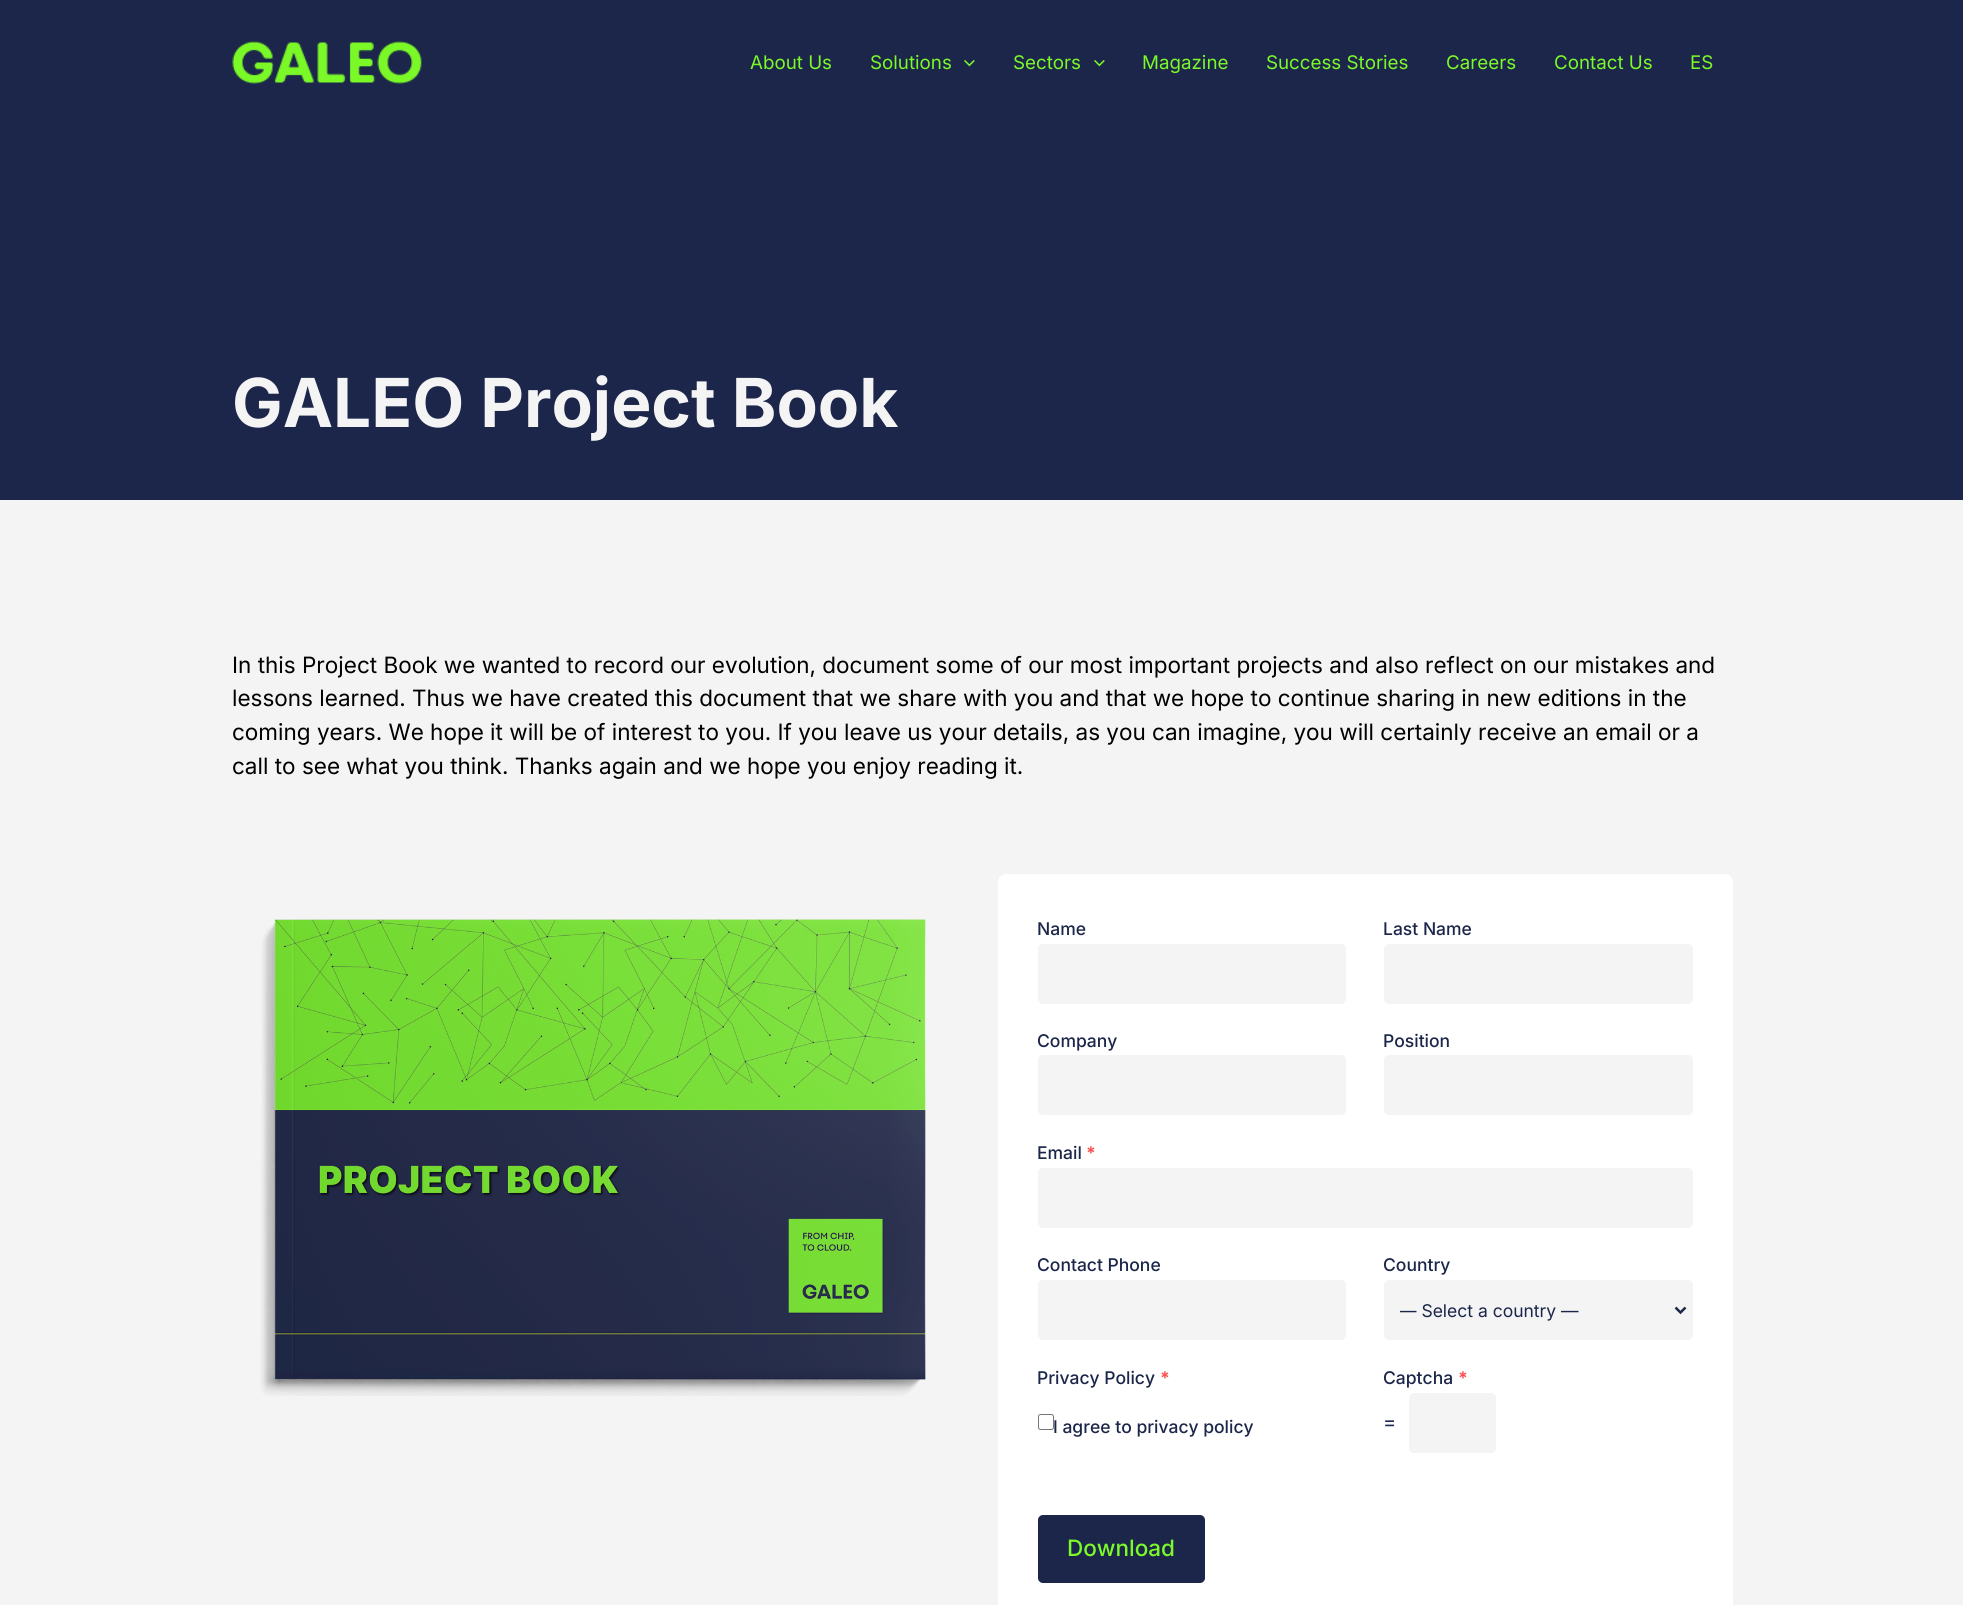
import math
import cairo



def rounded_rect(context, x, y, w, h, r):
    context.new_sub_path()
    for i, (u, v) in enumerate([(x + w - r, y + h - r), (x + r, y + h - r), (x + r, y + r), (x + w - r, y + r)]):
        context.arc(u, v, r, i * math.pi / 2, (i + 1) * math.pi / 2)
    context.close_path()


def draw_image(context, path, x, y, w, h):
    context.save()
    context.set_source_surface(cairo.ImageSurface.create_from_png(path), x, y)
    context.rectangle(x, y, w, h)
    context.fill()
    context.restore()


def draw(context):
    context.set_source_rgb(28 / 255, 38 / 255, 74 / 255)
    context.paint()
    draw_image(context, "images/1.png", 232, 41, 190, 43)
    draw_image(context, "images/2.png", 964, 60, 11, 7)
    draw_image(context, "images/2.png", 1094, 60, 11, 7)
    context.set_source_rgb(244 / 255, 244 / 255, 244 / 255)
    context.rectangle(0, 500, 1963, 1105)
    context.fill()
    draw_image(context, "images/3.png", 260, 919, 666, 477)
    context.set_source_rgb(1, 1, 1)
    rounded_rect(context, 998, 874, 735, 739, 8)
    context.fill()
    context.set_source_rgb(244 / 255, 244 / 255, 244 / 255)
    rounded_rect(context, 1038.5, 944.5, 307, 59, 4.5)
    context.fill_preserve()
    context.set_line_width(1)
    context.stroke()
    rounded_rect(context, 1384.5, 944.5, 308, 59, 4.5)
    context.fill_preserve()
    context.stroke()
    rounded_rect(context, 1038.5, 1055.5, 307, 59, 4.5)
    context.fill_preserve()
    context.stroke()
    rounded_rect(context, 1384.5, 1055.5, 308, 59, 4.5)
    context.fill_preserve()
    context.stroke()
    rounded_rect(context, 1038.5, 1168.5, 654, 59, 4.5)
    context.fill_preserve()
    context.stroke()
    rounded_rect(context, 1038.5, 1280.5, 307, 59, 4.5)
    context.fill_preserve()
    context.stroke()
    rounded_rect(context, 1384.5, 1280.5, 308, 59, 4.5)
    context.fill_preserve()
    context.stroke()
    context.new_path()
    context.move_to(1675.5, 1307.5)
    context.line_to(1680.5, 1312.5)
    context.line_to(1685.5, 1307.5)
    context.set_source_rgb(28 / 255, 38 / 255, 74 / 255)
    context.set_line_width(2.5)
    context.stroke()
    rounded_rect(context, 1038.5, 1414.5, 15, 15, 2)
    context.set_source_rgb(118 / 255, 118 / 255, 118 / 255)
    context.set_line_width(1)
    context.stroke()
    context.set_source_rgb(244 / 255, 244 / 255, 244 / 255)
    rounded_rect(context, 1409.5, 1393.5, 86, 59, 4.5)
    context.fill_preserve()
    context.stroke()
    context.set_source_rgb(28 / 255, 38 / 255, 74 / 255)
    rounded_rect(context, 1038, 1515, 167, 68, 5)
    context.fill()
    context.select_font_face("Inter")
    context.set_font_size(18.75)
    context.set_source_rgb(123 / 255, 249 / 255, 40 / 255)
    context.move_to(750, 69)
    context.show_text("About Us")
    context.move_to(870, 69)
    context.show_text("Solutions")
    context.move_to(1013, 69)
    context.show_text("Sectors")
    context.move_to(1142, 69)
    context.show_text("Magazine")
    context.move_to(1266, 69)
    context.show_text("Success Stories")
    context.move_to(1446, 69)
    context.show_text("Careers")
    context.move_to(1554, 69)
    context.show_text("Contact Us")
    context.move_to(1690, 69)
    context.show_text("ES")
    context.select_font_face("Inter", cairo.FontSlant.NORMAL, cairo.FontWeight.BOLD)
    context.set_font_size(67.5)
    context.set_source_rgb(244 / 255, 244 / 255, 244 / 255)
    context.move_to(232, 427)
    context.show_text("GALEO Project Book")
    context.select_font_face("Inter")
    context.set_font_size(22.5)
    context.set_source_rgb(0, 0, 0)
    context.move_to(232, 673)
    context.show_text("In this Project Book we wanted to record our evolution, document some of our most important projects and also reflect on our mistakes and")
    context.move_to(232, 706)
    context.show_text("lessons learned. Thus we have created this document that we share with you and that we hope to continue sharing in new editions in the")
    context.move_to(232, 740)
    context.show_text("coming years. We hope it will be of interest to you. If you leave us your details, as you can imagine, you will certainly receive an email or a")
    context.move_to(232, 774)
    context.show_text("call to see what you think. Thanks again and we hope you enjoy reading it.")
    context.select_font_face("Inter Medium")
    context.set_font_size(17.5)
    context.set_source_rgb(28 / 255, 38 / 255, 74 / 255)
    context.move_to(1037, 935)
    context.show_text("Name")
    context.move_to(1383, 935)
    context.show_text("Last Name")
    context.move_to(1037, 1047)
    context.show_text("Company")
    context.move_to(1383, 1047)
    context.show_text("Position")
    context.move_to(1037, 1159)
    context.show_text("Email")
    context.select_font_face("Inter", cairo.FontSlant.NORMAL, cairo.FontWeight.BOLD)
    context.set_source_rgb(250 / 255, 82 / 255, 82 / 255)
    context.move_to(1086, 1159)
    context.show_text("*")
    context.select_font_face("Inter Medium")
    context.set_source_rgb(28 / 255, 38 / 255, 74 / 255)
    context.move_to(1037, 1271)
    context.show_text("Contact Phone")
    context.move_to(1383, 1271)
    context.show_text("Country")
    context.save()
    context.rectangle(1400, 1298, 261, 23)
    context.clip()
    context.select_font_face("Inter")
    context.move_to(1399, 1317)
    context.show_text("— Select a country —")
    context.restore()
    context.move_to(1037, 1384)
    context.show_text("Privacy Policy")
    context.select_font_face("Inter", cairo.FontSlant.NORMAL, cairo.FontWeight.BOLD)
    context.set_source_rgb(250 / 255, 82 / 255, 82 / 255)
    context.move_to(1160, 1384)
    context.show_text("*")
    context.select_font_face("Inter Medium")
    context.set_source_rgb(28 / 255, 38 / 255, 74 / 255)
    context.move_to(1053, 1433)
    context.show_text("I agree to privacy policy")
    context.move_to(1383, 1384)
    context.show_text("Captcha")
    context.select_font_face("Inter", cairo.FontSlant.NORMAL, cairo.FontWeight.BOLD)
    context.set_source_rgb(250 / 255, 82 / 255, 82 / 255)
    context.move_to(1458, 1384)
    context.show_text("*")
    context.select_font_face("Inter")
    context.set_font_size(20)
    context.set_source_rgb(28 / 255, 38 / 255, 74 / 255)
    context.move_to(1383, 1429)
    context.show_text("=")
    context.select_font_face("Inter Medium")
    context.set_font_size(22.5)
    context.set_source_rgb(123 / 255, 249 / 255, 40 / 255)
    context.move_to(1067, 1556)
    context.show_text("Download")


surface = cairo.ImageSurface(cairo.Format.RGB24, 1963, 1605)
context = cairo.Context(surface)
options = cairo.FontOptions()
options.set_hint_metrics(cairo.HintMetrics.OFF)
options.set_hint_style(cairo.HintStyle.NONE)
context.set_font_options(options)
context.set_miter_limit(4)
draw(context)
surface.write_to_png("out.png")
